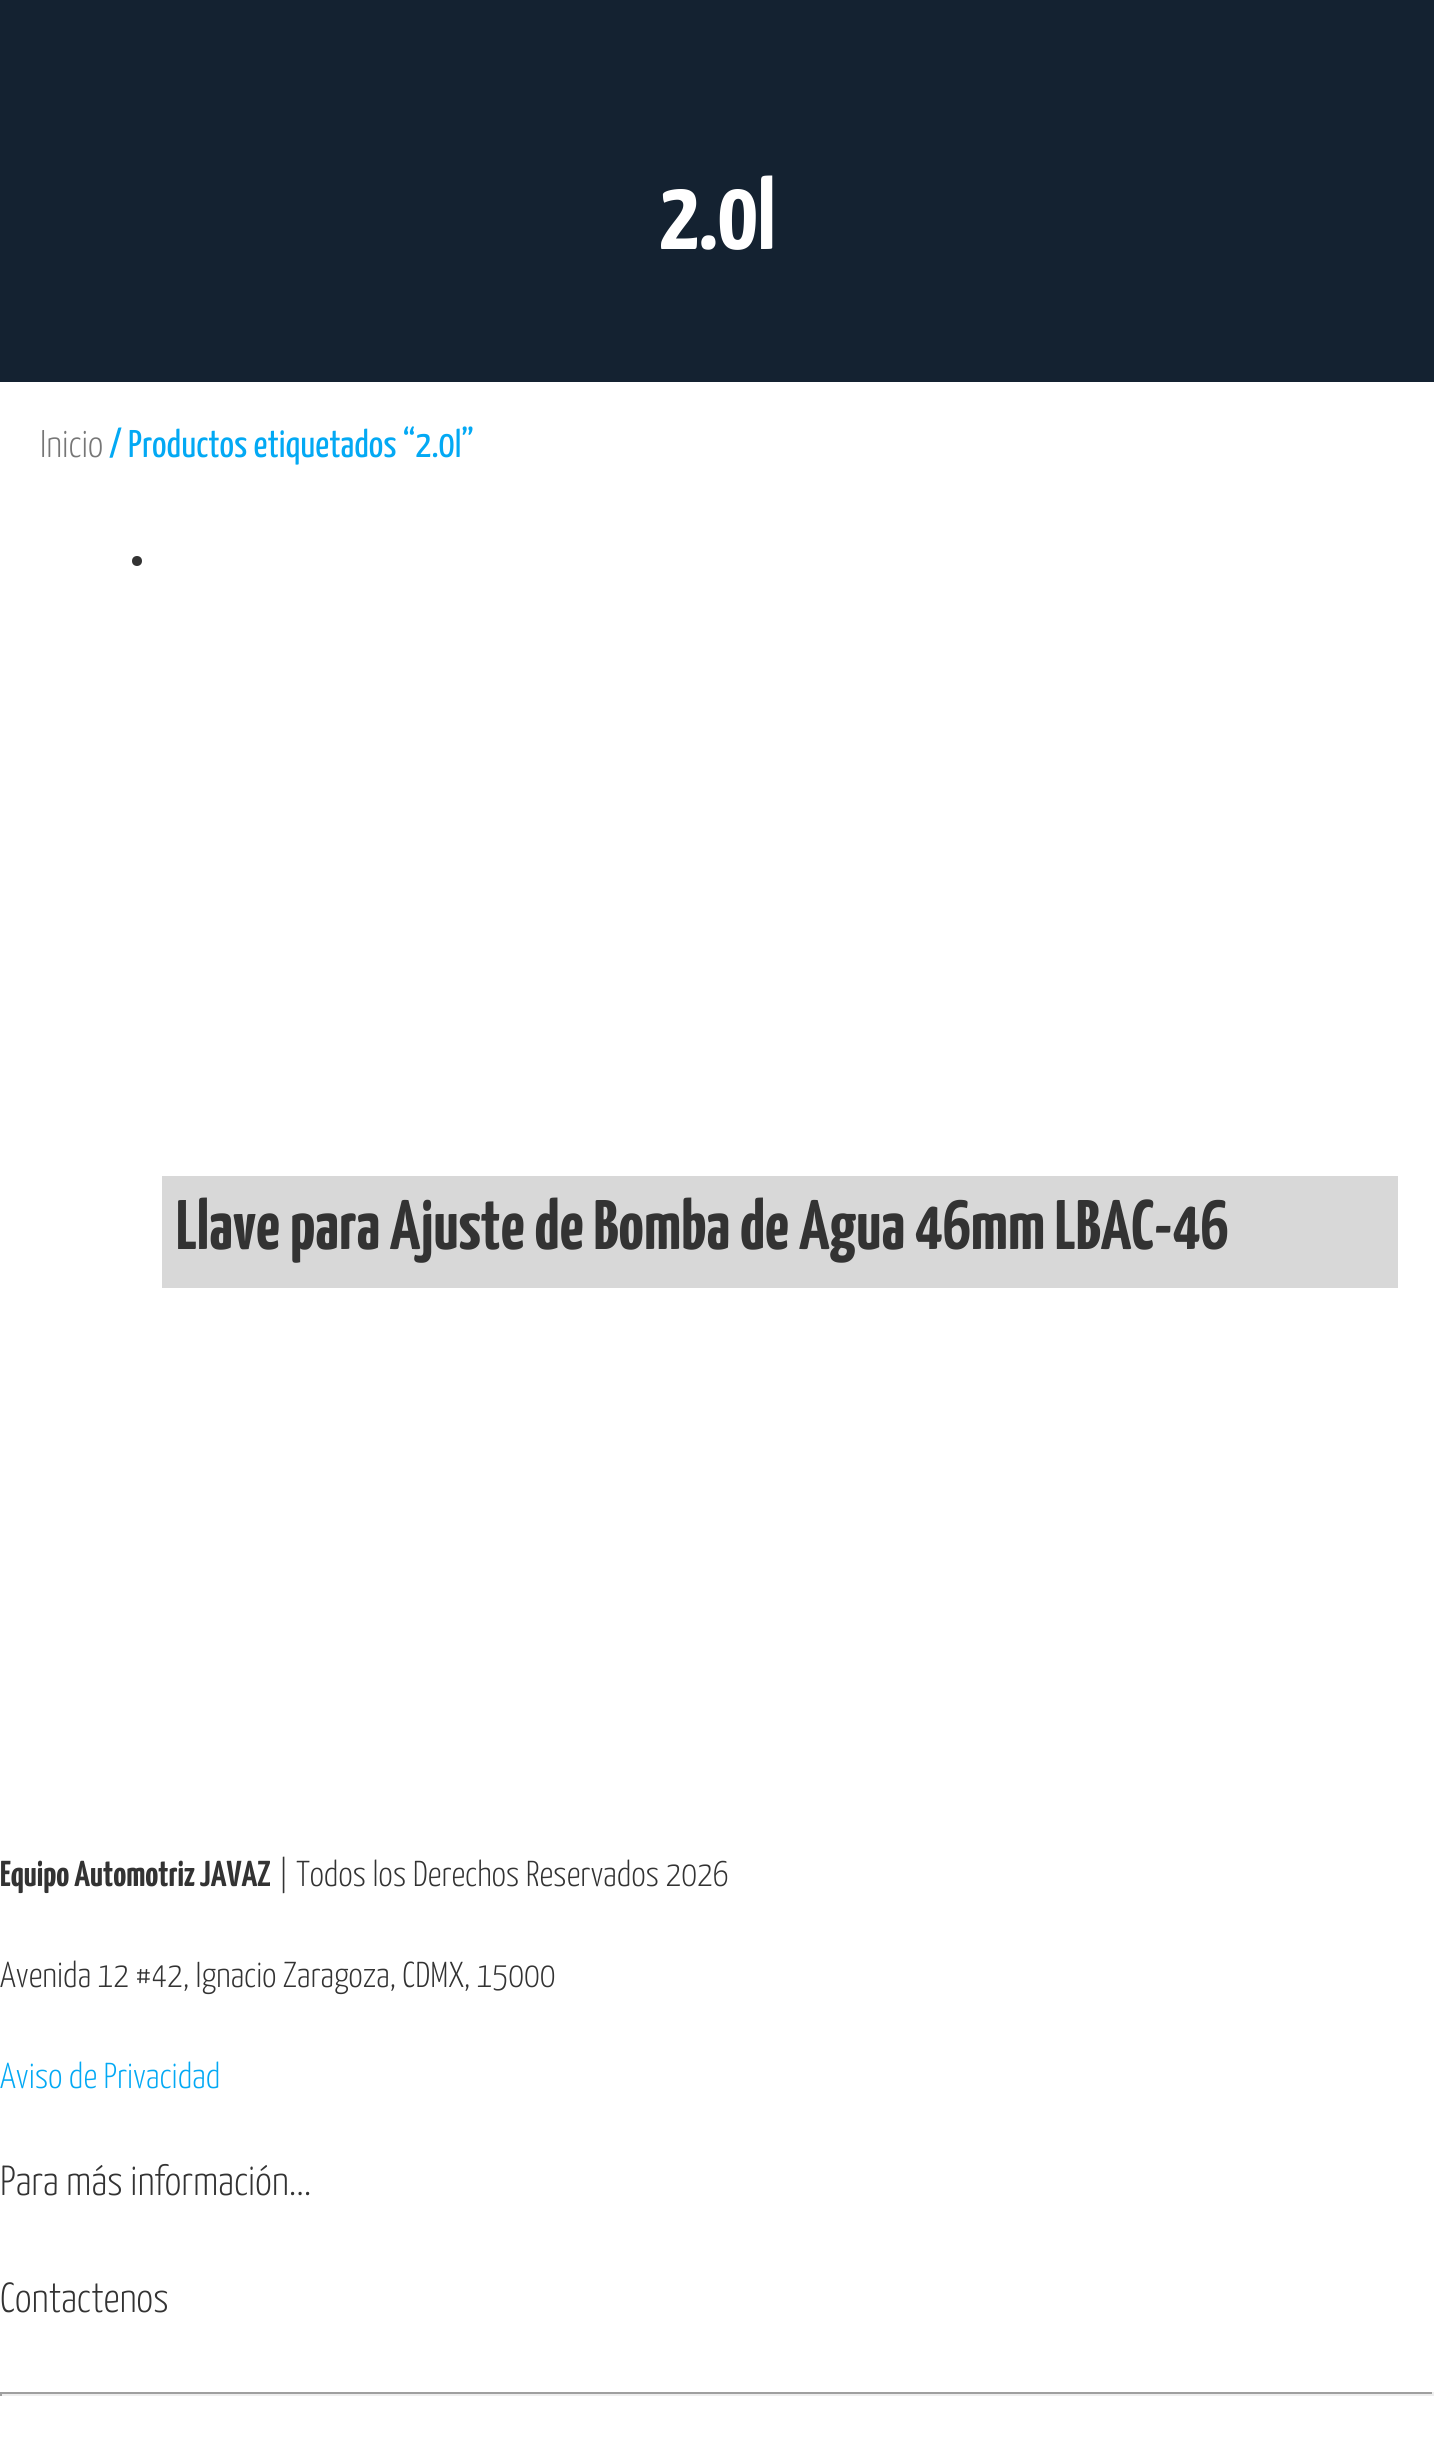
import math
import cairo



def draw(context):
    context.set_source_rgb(1, 1, 1)
    context.paint()
    context.set_source_rgb(20 / 255, 34 / 255, 49 / 255)
    context.rectangle(0, 0, 1434, 382)
    context.fill()
    context.set_source_rgb(51 / 255, 51 / 255, 51 / 255)
    context.arc(137, 561, 5, 0, 2 * math.pi)
    context.fill()
    context.set_source_rgb(216 / 255, 216 / 255, 216 / 255)
    context.rectangle(166, 1180, 1228, 104)
    context.fill()
    context.rectangle(164, 1178, 1232, 108)
    context.set_line_width(4)
    context.stroke()
    context.set_source_rgb(159 / 255, 159 / 255, 159 / 255)
    context.rectangle(0, 2392, 1434, 2)
    context.fill()
    context.set_source_rgb(238 / 255, 238 / 255, 238 / 255)
    context.rectangle(1432, 2392, 2, 4)
    context.fill()
    context.rectangle(0, 2394, 1434, 2)
    context.fill()
    context.set_source_rgb(159 / 255, 159 / 255, 159 / 255)
    context.rectangle(0, 2392, 2, 4)
    context.fill()
    context.select_font_face("Yanone Kaffeesatz", cairo.FontSlant.NORMAL, cairo.FontWeight.BOLD)
    context.set_font_size(100)
    context.set_source_rgb(1, 1, 1)
    context.move_to(659, 249)
    context.show_text("2.0l")
    context.select_font_face("Yanone Kaffeesatz Light")
    context.set_font_size(38.6)
    context.set_source_rgb(118 / 255, 118 / 255, 118 / 255)
    context.move_to(40, 457)
    context.show_text("Inicio")
    context.select_font_face("Yanone Kaffeesatz")
    context.set_source_rgb(3 / 255, 169 / 255, 244 / 255)
    context.move_to(109, 457)
    context.show_text("/ Productos etiquetados “2.0l”")
    context.select_font_face("Yanone Kaffeesatz", cairo.FontSlant.NORMAL, cairo.FontWeight.BOLD)
    context.set_font_size(70)
    context.set_source_rgb(51 / 255, 51 / 255, 51 / 255)
    context.move_to(176, 1249)
    context.show_text("Llave para Ajuste de Bomba de Agua 46mm LBAC-46")
    context.set_font_size(36)
    context.move_to(0, 1886)
    context.show_text("Equipo Automotriz JAVAZ")
    context.select_font_face("Yanone Kaffeesatz Light")
    context.move_to(277, 1886)
    context.show_text("| Todos los Derechos Reservados 2026")
    context.move_to(0, 1987)
    context.show_text("Avenida 12 #42, Ignacio Zaragoza, CDMX, 15000")
    context.set_source_rgb(3 / 255, 169 / 255, 244 / 255)
    context.move_to(0, 2088)
    context.show_text("Aviso de Privacidad")
    context.set_font_size(42)
    context.set_source_rgb(51 / 255, 51 / 255, 51 / 255)
    context.move_to(0, 2195)
    context.show_text("Para más información...")
    context.move_to(0, 2312)
    context.show_text("Contactenos")


surface = cairo.ImageSurface(cairo.Format.RGB24, 1434, 2457)
context = cairo.Context(surface)
options = cairo.FontOptions()
options.set_hint_metrics(cairo.HintMetrics.OFF)
options.set_hint_style(cairo.HintStyle.NONE)
context.set_font_options(options)
context.set_miter_limit(4)
draw(context)
surface.write_to_png("out.png")
